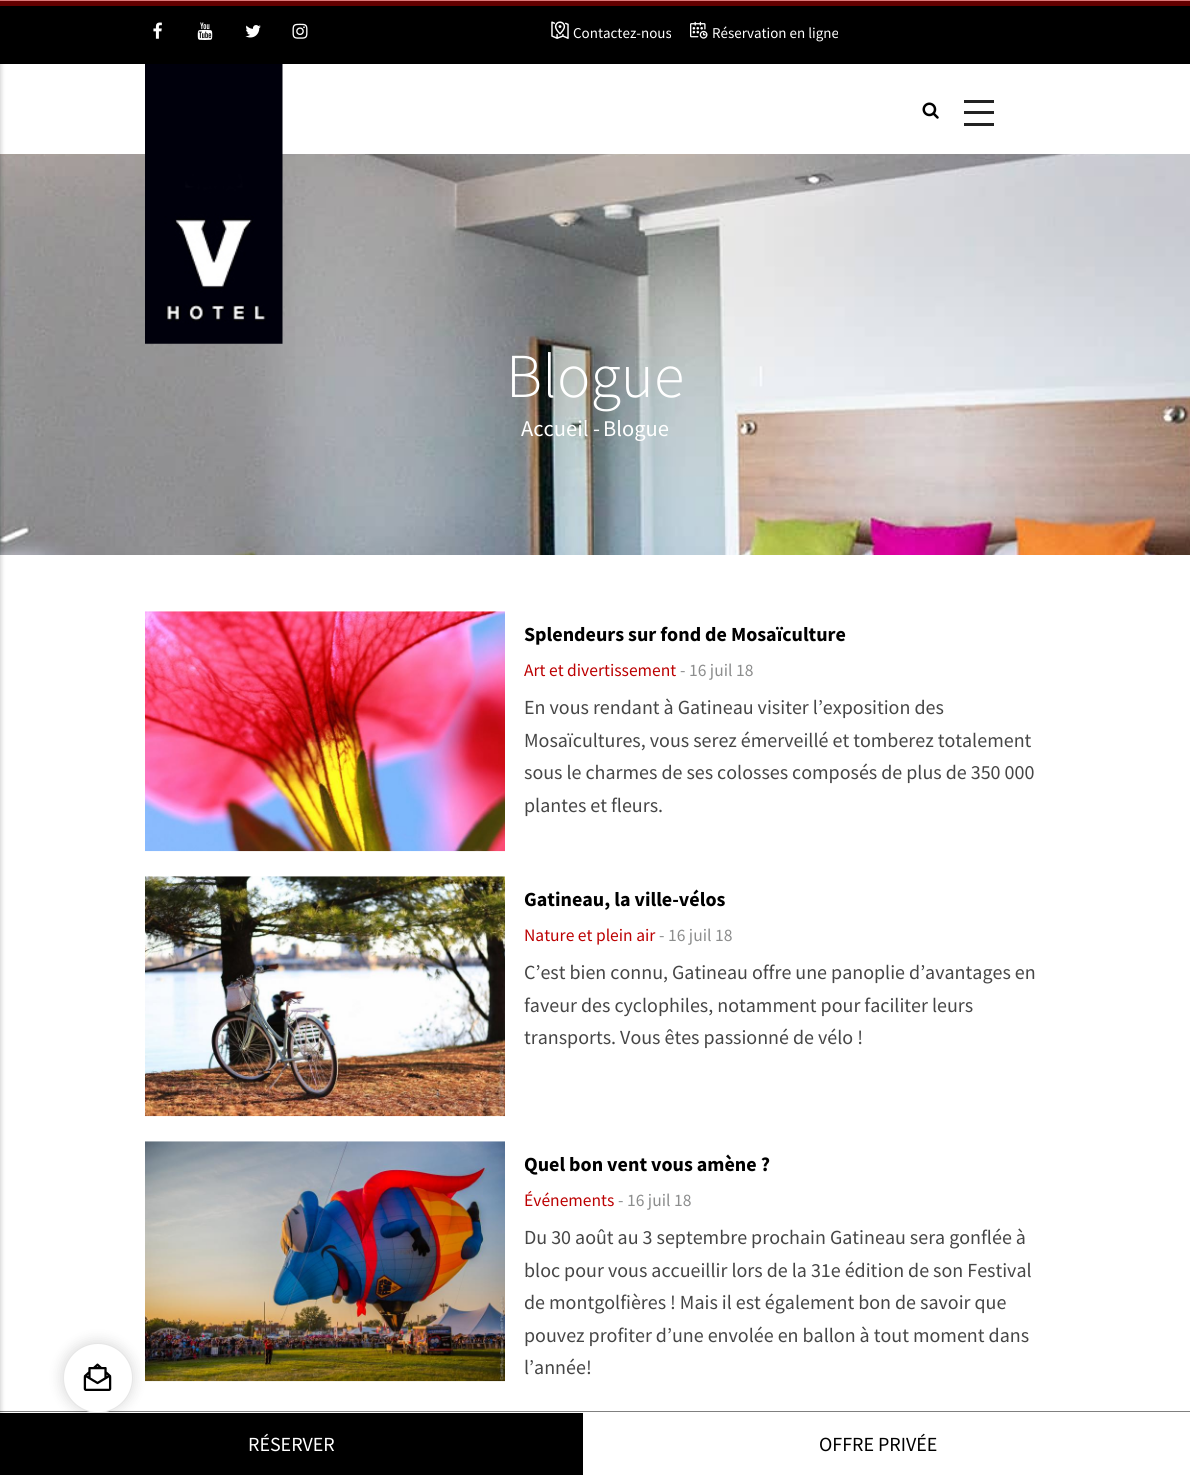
import math
import cairo



def rounded_rect(context, x, y, w, h, r):
    context.new_sub_path()
    for i, (u, v) in enumerate([(x + w - r, y + h - r), (x + r, y + h - r), (x + r, y + r), (x + w - r, y + r)]):
        context.arc(u, v, r, i * math.pi / 2, (i + 1) * math.pi / 2)
    context.close_path()


def draw_shadow(context, x, y, w, h, r, blur, alpha):
    context.push_group_with_content(cairo.Content.ALPHA)
    context.set_operator(cairo.Operator.SOURCE)
    for i in range(15, -16, -2):
        e = blur * i / 6
        if min(w, h) + 2 * e > 0:
            context.set_source_rgba(0, 0, 0, alpha * math.erfc((i - 1) / 8.5) / 2)
            rounded_rect(context, x - e, y - e, w + 2 * e, h + 2 * e, max(0, min(r + e + blur * .6, min(w, h) / 2 + e)))
            context.fill()
    context.mask(context.pop_group())


def draw_image(context, path, x, y, w, h):
    context.save()
    context.set_source_surface(cairo.ImageSurface.create_from_png(path), x, y)
    context.rectangle(x, y, w, h)
    context.fill()
    context.restore()


def draw(context):
    context.set_source_rgb(1, 1, 1)
    context.paint()
    context.set_source_rgb(0, 0, 0)
    context.rectangle(0, 1, 1190, 63)
    context.fill()
    draw_image(context, "images/10.png", 0, 154, 1190, 401)
    context.set_source_rgb(128 / 255, 128 / 255, 128 / 255)
    context.rectangle(0, 1411, 1190, 1)
    context.fill()
    context.set_source_rgb(0, 0, 0)
    context.rectangle(0, 1413, 583, 62)
    context.fill()
    context.set_source_rgb(0, 0, 0)
    draw_shadow(context, -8, 4, 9, 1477, 0, 2.5, 0.2)
    context.set_source_rgba(188 / 255, 0, 1 / 255, 0.53)
    context.rectangle(0, 0, 1190, 6)
    context.fill()
    draw_image(context, "images/13.png", 145, 1141, 360, 241)
    context.set_source_rgb(0, 0, 0)
    draw_shadow(context, 59, 1339, 77, 77, 38.5, 5.5, 0.1)
    context.set_source_rgb(1, 1, 1)
    context.arc(98, 1378, 35, 0, 2 * math.pi)
    context.fill()
    context.arc(98, 1378, 34.5, 0, 2 * math.pi)
    context.set_source_rgba(0, 0, 0, 0.1)
    context.set_line_width(1)
    context.stroke()
    draw_image(context, "images/1.png", 83, 1363, 29, 28)
    draw_image(context, "images/2.png", 922, 102, 17, 17)
    context.set_source_rgb(34 / 255, 34 / 255, 34 / 255)
    context.rectangle(964, 100, 30, 3)
    context.fill()
    context.rectangle(964, 111, 30, 3)
    context.fill()
    context.rectangle(964, 123, 30, 3)
    context.fill()
    draw_image(context, "images/3.png", 145, 64, 138, 280)
    draw_image(context, "images/4.png", 153, 22, 9, 17)
    draw_image(context, "images/5.png", 197, 22, 16, 18)
    draw_image(context, "images/6.png", 245, 25, 16, 13)
    draw_image(context, "images/7.png", 292, 23, 16, 16)
    draw_image(context, "images/8.png", 551, 21, 18, 18)
    draw_image(context, "images/9.png", 690, 21, 18, 18)
    draw_image(context, "images/11.png", 145, 611, 360, 241)
    draw_image(context, "images/12.png", 145, 876, 360, 241)
    context.select_font_face("Source Sans Pro")
    context.set_font_size(15)
    context.set_source_rgb(1, 1, 1)
    context.move_to(573, 38)
    context.show_text("Contactez-nous")
    context.move_to(712, 38)
    context.show_text("Réservation en ligne")
    context.select_font_face("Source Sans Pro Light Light")
    context.set_font_size(62.5)
    context.move_to(506, 397)
    context.show_text("Blogue")
    context.select_font_face("Source Sans Pro")
    context.set_font_size(22.5)
    context.move_to(521, 436)
    context.show_text("Accueil -")
    context.move_to(603, 436)
    context.show_text("Blogue")
    context.select_font_face("Source Sans Pro", cairo.FontSlant.NORMAL, cairo.FontWeight.BOLD)
    context.set_font_size(20)
    context.set_source_rgb(0, 0, 0)
    context.move_to(524, 641)
    context.show_text("Splendeurs sur fond de Mosaïculture")
    context.select_font_face("Source Sans Pro")
    context.set_font_size(17.5)
    context.set_source_rgb(188 / 255, 0, 1 / 255)
    context.move_to(524, 676)
    context.show_text("Art et divertissement")
    context.set_source_rgb(140 / 255, 141 / 255, 141 / 255)
    context.move_to(680, 676)
    context.show_text("- 16 juil 18")
    context.set_font_size(20)
    context.set_source_rgb(70 / 255, 70 / 255, 70 / 255)
    context.move_to(524, 714)
    context.show_text("En vous rendant à Gatineau visiter l’exposition des")
    context.move_to(524, 747)
    context.show_text("Mosaïcultures, vous serez émerveillé et tomberez totalement")
    context.move_to(524, 779)
    context.show_text("sous le charmes de ses colosses composés de plus de 350 000")
    context.move_to(524, 812)
    context.show_text("plantes et fleurs.")
    context.select_font_face("Source Sans Pro", cairo.FontSlant.NORMAL, cairo.FontWeight.BOLD)
    context.set_source_rgb(0, 0, 0)
    context.move_to(524, 906)
    context.show_text("Gatineau, la ville-vélos")
    context.select_font_face("Source Sans Pro")
    context.set_font_size(17.5)
    context.set_source_rgb(188 / 255, 0, 1 / 255)
    context.move_to(524, 941)
    context.show_text("Nature et plein air")
    context.set_source_rgb(140 / 255, 141 / 255, 141 / 255)
    context.move_to(659, 941)
    context.show_text("- 16 juil 18")
    context.set_font_size(20)
    context.set_source_rgb(70 / 255, 70 / 255, 70 / 255)
    context.move_to(524, 979)
    context.show_text("C’est bien connu, Gatineau offre une panoplie d’avantages en")
    context.move_to(524, 1012)
    context.show_text("faveur des cyclophiles, notamment pour faciliter leurs")
    context.move_to(524, 1044)
    context.show_text("transports. Vous êtes passionné de vélo !")
    context.select_font_face("Source Sans Pro", cairo.FontSlant.NORMAL, cairo.FontWeight.BOLD)
    context.set_source_rgb(0, 0, 0)
    context.move_to(524, 1171)
    context.show_text("Quel bon vent vous amène ?")
    context.select_font_face("Source Sans Pro")
    context.set_font_size(17.5)
    context.set_source_rgb(188 / 255, 0, 1 / 255)
    context.move_to(524, 1206)
    context.show_text("Événements")
    context.set_source_rgb(140 / 255, 141 / 255, 141 / 255)
    context.move_to(618, 1206)
    context.show_text("- 16 juil 18")
    context.set_font_size(20)
    context.set_source_rgb(70 / 255, 70 / 255, 70 / 255)
    context.move_to(524, 1244)
    context.show_text("Du 30 août au 3 septembre prochain Gatineau sera gonflée à")
    context.move_to(524, 1277)
    context.show_text("bloc pour vous accueillir lors de la 31e édition de son Festival")
    context.move_to(524, 1309)
    context.show_text("de montgolfières ! Mais il est également bon de savoir que")
    context.move_to(524, 1342)
    context.show_text("pouvez profiter d’une envolée en ballon à tout moment dans")
    context.move_to(524, 1374)
    context.show_text("l’année!")
    context.set_source_rgb(1, 1, 1)
    context.move_to(248, 1451)
    context.show_text("RÉSERVER")
    context.set_source_rgb(0, 0, 0)
    context.move_to(819, 1451)
    context.show_text("OFFRE PRIVÉE")


surface = cairo.ImageSurface(cairo.Format.RGB24, 1190, 1475)
context = cairo.Context(surface)
options = cairo.FontOptions()
options.set_hint_metrics(cairo.HintMetrics.OFF)
options.set_hint_style(cairo.HintStyle.NONE)
context.set_font_options(options)
context.set_miter_limit(4)
draw(context)
surface.write_to_png("out.png")
